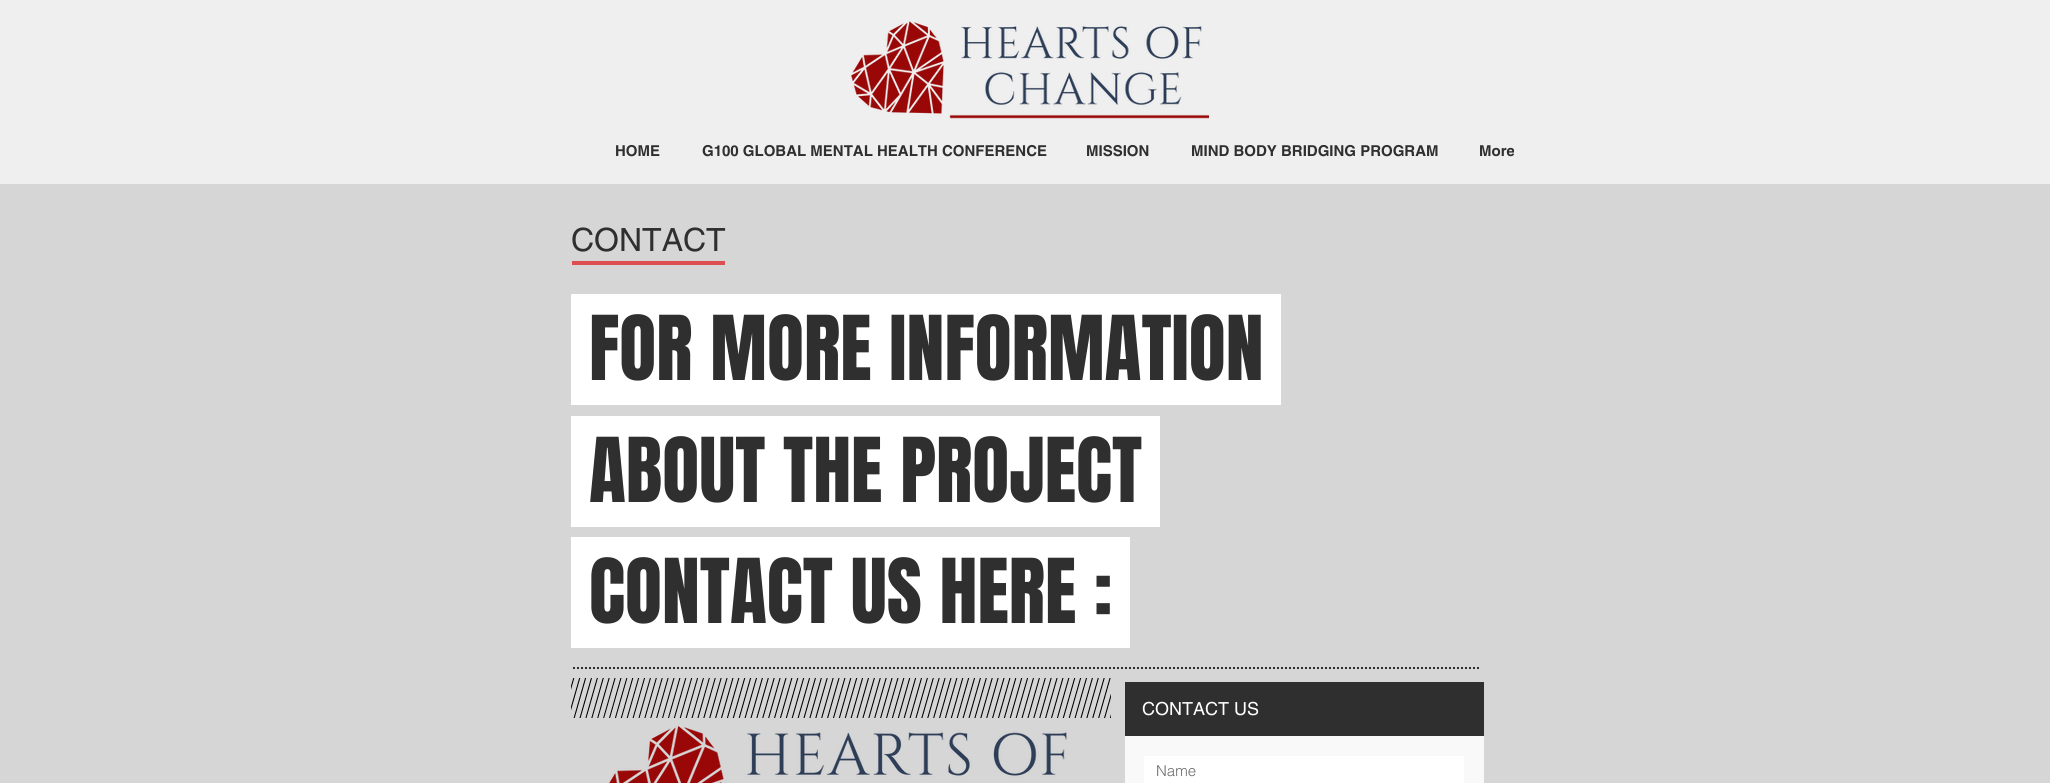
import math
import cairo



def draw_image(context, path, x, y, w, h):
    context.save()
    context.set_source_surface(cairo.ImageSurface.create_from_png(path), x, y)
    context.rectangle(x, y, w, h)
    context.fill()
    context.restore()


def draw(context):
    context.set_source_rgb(214 / 255, 214 / 255, 214 / 255)
    context.paint()
    context.set_source_rgb(239 / 255, 239 / 255, 239 / 255)
    context.rectangle(0, 0, 2050, 184)
    context.fill()
    draw_image(context, "images/1.png", 851, 21, 358, 98)
    context.set_source_rgb(221 / 255, 78 / 255, 78 / 255)
    context.rectangle(572, 261, 153, 4)
    context.fill()
    context.set_source_rgb(1, 1, 1)
    context.rectangle(571, 294, 710, 111)
    context.fill()
    context.rectangle(571, 416, 589, 111)
    context.fill()
    context.rectangle(571, 537, 559, 111)
    context.fill()
    context.new_path()
    context.move_to(573, 668)
    context.line_to(1480, 668)
    context.set_source_rgb(47 / 255, 47 / 255, 47 / 255)
    context.set_dash([2, 2])
    context.stroke()
    draw_image(context, "images/2.png", 571, 678, 540, 40)
    context.rectangle(1125, 682, 359, 54)
    context.fill()
    draw_image(context, "images/3.png", 609, 726, 458, 57)
    context.set_source_rgb(249 / 255, 249 / 255, 249 / 255)
    context.rectangle(1125, 736, 359, 47)
    context.fill()
    context.set_source_rgb(1, 1, 1)
    context.rectangle(1144, 756, 320, 27)
    context.fill()
    context.select_font_face("helvetica", cairo.FontSlant.NORMAL, cairo.FontWeight.BOLD)
    context.set_font_size(15)
    context.set_source_rgb(47 / 255, 47 / 255, 47 / 255)
    context.move_to(615, 156)
    context.show_text("HOME")
    context.move_to(702, 156)
    context.show_text("G100 GLOBAL MENTAL HEALTH CONFERENCE")
    context.move_to(1086, 156)
    context.show_text("MISSION")
    context.move_to(1191, 156)
    context.show_text("MIND BODY BRIDGING PROGRAM")
    context.move_to(1479, 156)
    context.show_text("More")
    context.select_font_face("helvetica")
    context.set_font_size(32)
    context.move_to(571, 251)
    context.show_text("CONTACT")
    context.select_font_face("Anton")
    context.set_font_size(76)
    context.move_to(589, 380)
    context.show_text("FOR MORE INFORMATION")
    context.move_to(589, 502)
    context.show_text("ABOUT THE PROJECT")
    context.move_to(589, 623)
    context.show_text("CONTACT US HERE :")
    context.select_font_face("helvetica")
    context.set_font_size(18)
    context.set_source_rgb(1, 1, 1)
    context.move_to(1142, 715)
    context.show_text("CONTACT US")
    context.select_font_face("helvetica Light")
    context.set_font_size(15)
    context.set_source_rgb(107 / 255, 105 / 255, 105 / 255)
    context.move_to(1156, 776)
    context.show_text("Name")


surface = cairo.ImageSurface(cairo.Format.RGB24, 2050, 783)
context = cairo.Context(surface)
options = cairo.FontOptions()
options.set_hint_metrics(cairo.HintMetrics.OFF)
options.set_hint_style(cairo.HintStyle.NONE)
context.set_font_options(options)
context.set_miter_limit(4)
draw(context)
surface.write_to_png("out.png")
